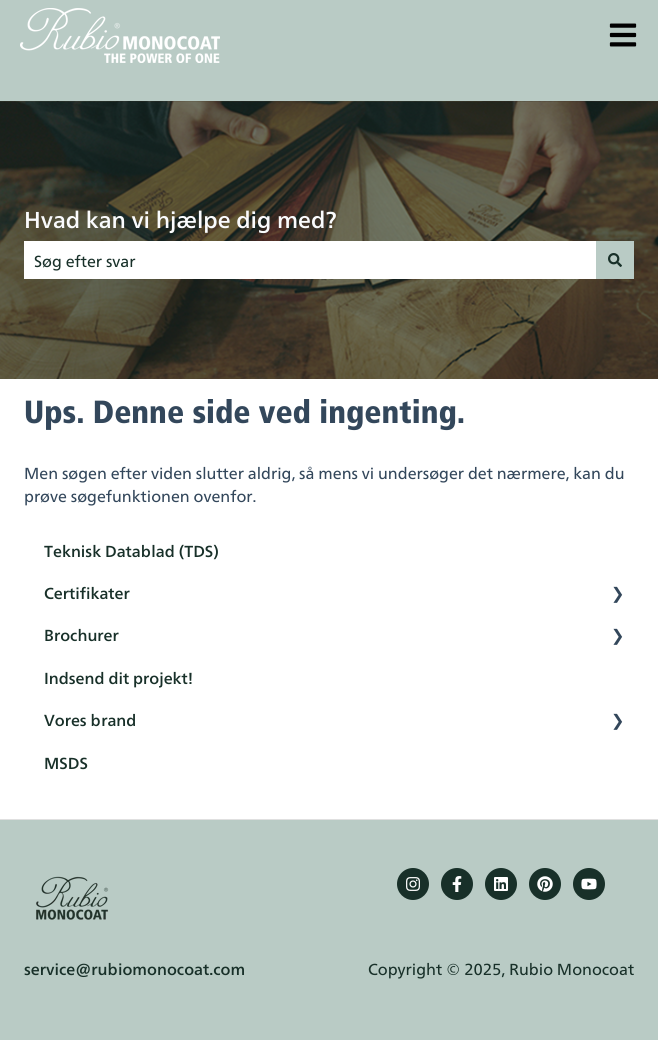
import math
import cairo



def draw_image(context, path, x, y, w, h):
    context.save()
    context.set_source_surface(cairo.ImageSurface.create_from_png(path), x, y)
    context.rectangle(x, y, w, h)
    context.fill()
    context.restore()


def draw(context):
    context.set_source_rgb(1, 1, 1)
    context.paint()
    context.set_source_rgb(185 / 255, 203 / 255, 197 / 255)
    context.rectangle(0, 0, 658, 101)
    context.fill()
    draw_image(context, "images/1.png", 20, 8, 200, 55)
    draw_image(context, "images/2.png", 609, 23, 28, 24)
    draw_image(context, "images/3.png", 0, 101, 658, 278)
    context.set_source_rgb(1, 1, 1)
    context.rectangle(24, 241, 572, 38)
    context.fill()
    context.set_source_rgb(185 / 255, 203 / 255, 197 / 255)
    context.rectangle(596, 241, 38, 38)
    context.fill()
    draw_image(context, "images/4.png", 608, 253, 14, 14)
    context.rectangle(0, 820, 658, 220)
    context.fill()
    context.set_source_rgb(224 / 255, 224 / 255, 224 / 255)
    context.rectangle(0, 819, 658, 1)
    context.fill()
    draw_image(context, "images/5.png", 36, 876, 73, 44)
    context.set_source_rgb(24 / 255, 48 / 255, 41 / 255)
    context.arc(413, 884, 16, 0, 2 * math.pi)
    context.fill()
    draw_image(context, "images/6.png", 406, 877, 14, 14)
    context.arc(457, 884, 16, 0, 2 * math.pi)
    context.fill()
    draw_image(context, "images/7.png", 452, 876, 10, 16)
    context.arc(501, 884, 16, 0, 2 * math.pi)
    context.fill()
    draw_image(context, "images/8.png", 494, 877, 14, 14)
    context.arc(545, 884, 16, 0, 2 * math.pi)
    context.fill()
    draw_image(context, "images/9.png", 537, 876, 16, 16)
    context.arc(589, 884, 16, 0, 2 * math.pi)
    context.fill()
    draw_image(context, "images/10.png", 581, 878, 16, 12)
    context.select_font_face("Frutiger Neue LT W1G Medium")
    context.set_font_size(23)
    context.set_source_rgb(250 / 255, 251 / 255, 253 / 255)
    context.move_to(24, 228)
    context.show_text("Hvad kan vi hjælpe dig med?")
    context.select_font_face("Frutiger Neue LT W1G")
    context.set_font_size(16)
    context.set_source_rgb(24 / 255, 48 / 255, 41 / 255)
    context.move_to(34, 267)
    context.show_text("Søg efter svar")
    context.select_font_face("Frutiger Black")
    context.set_font_size(32)
    context.set_source_rgb(51 / 255, 71 / 255, 91 / 255)
    context.move_to(24, 423)
    context.show_text("Ups. Denne side ved ingenting.")
    context.select_font_face("Frutiger Neue LT W1G")
    context.set_font_size(16)
    context.move_to(24, 479)
    context.show_text("Men søgen efter viden slutter aldrig, så mens vi undersøger det nærmere, kan du")
    context.move_to(24, 502)
    context.show_text("prøve søgefunktionen ovenfor.")
    context.select_font_face("Frutiger Neue LT W1G Medium")
    context.set_source_rgb(24 / 255, 48 / 255, 41 / 255)
    context.move_to(44, 557)
    context.show_text("Teknisk Datablad (TDS)")
    context.move_to(44, 599)
    context.show_text("Certifikater")
    context.select_font_face("DejaVu Sans")
    context.set_source_rgb(51 / 255, 71 / 255, 91 / 255)
    context.move_to(611, 599)
    context.show_text("❯")
    context.select_font_face("Frutiger Neue LT W1G Medium")
    context.set_source_rgb(24 / 255, 48 / 255, 41 / 255)
    context.move_to(44, 641)
    context.show_text("Brochurer")
    context.select_font_face("DejaVu Sans")
    context.set_source_rgb(51 / 255, 71 / 255, 91 / 255)
    context.move_to(611, 641)
    context.show_text("❯")
    context.select_font_face("Frutiger Neue LT W1G Medium")
    context.set_source_rgb(24 / 255, 48 / 255, 41 / 255)
    context.move_to(44, 684)
    context.show_text("Indsend dit projekt!")
    context.move_to(44, 726)
    context.show_text("Vores brand")
    context.select_font_face("DejaVu Sans")
    context.set_source_rgb(51 / 255, 71 / 255, 91 / 255)
    context.move_to(611, 726)
    context.show_text("❯")
    context.select_font_face("Frutiger Neue LT W1G Medium")
    context.set_source_rgb(24 / 255, 48 / 255, 41 / 255)
    context.move_to(44, 769)
    context.show_text("MSDS")
    context.move_to(24, 975)
    context.show_text("service@rubiomonocoat.com")
    context.select_font_face("Frutiger Neue LT W1G")
    context.move_to(368, 975)
    context.show_text("Copyright © 2025, Rubio Monocoat")


surface = cairo.ImageSurface(cairo.Format.RGB24, 658, 1040)
context = cairo.Context(surface)
options = cairo.FontOptions()
options.set_hint_metrics(cairo.HintMetrics.OFF)
options.set_hint_style(cairo.HintStyle.NONE)
context.set_font_options(options)
context.set_miter_limit(4)
draw(context)
surface.write_to_png("out.png")
